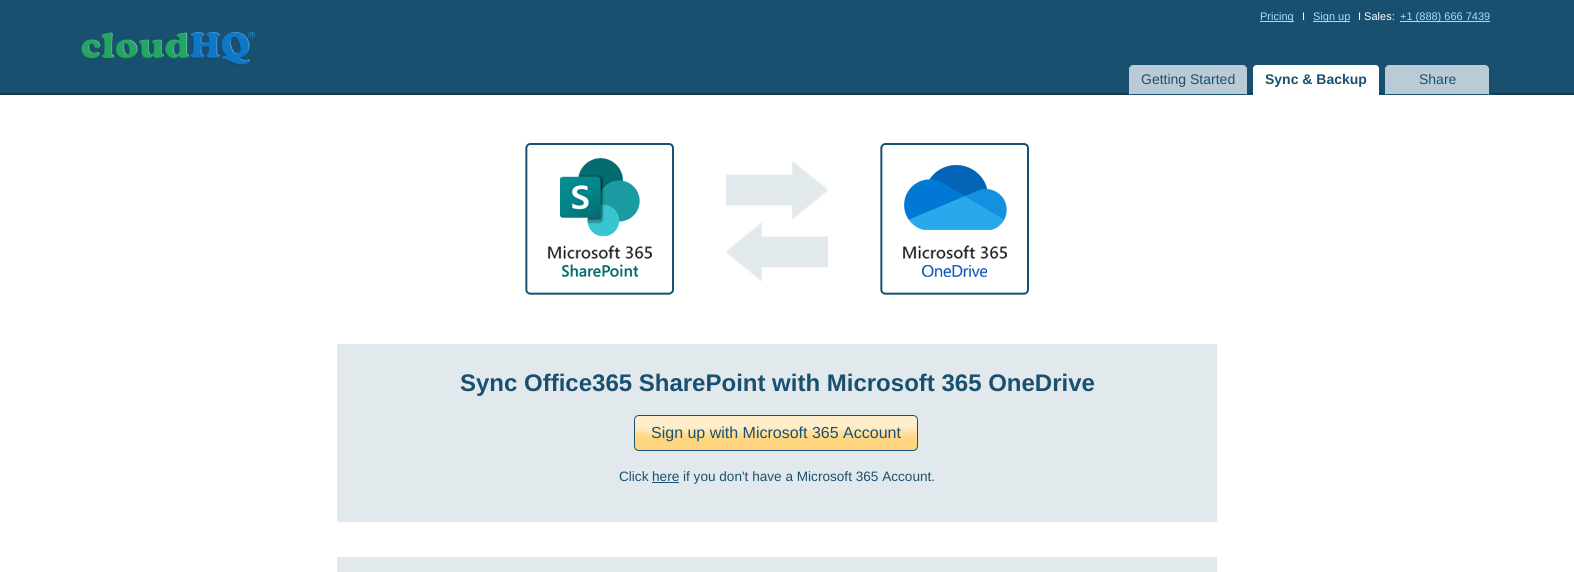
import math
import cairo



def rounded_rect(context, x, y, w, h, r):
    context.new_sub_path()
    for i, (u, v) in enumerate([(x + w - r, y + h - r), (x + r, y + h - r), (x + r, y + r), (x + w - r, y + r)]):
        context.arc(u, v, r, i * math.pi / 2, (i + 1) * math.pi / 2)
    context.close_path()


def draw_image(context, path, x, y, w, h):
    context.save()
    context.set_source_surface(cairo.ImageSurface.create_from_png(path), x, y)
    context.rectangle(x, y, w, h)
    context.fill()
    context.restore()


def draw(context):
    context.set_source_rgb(1, 1, 1)
    context.paint()
    draw_image(context, "images/1.png", 0, 0, 1574, 95)
    context.set_source_rgb(164 / 255, 221 / 255, 1)
    context.rectangle(1260, 21, 34, 1)
    context.fill()
    context.rectangle(1313, 21, 37, 1)
    context.fill()
    context.rectangle(1400, 21, 90, 1)
    context.fill()
    draw_image(context, "images/2.png", 81, 31, 174, 35)
    context.set_source_rgb(25 / 255, 80 / 255, 111 / 255)
    context.rectangle(1247, 94, 248, 1)
    context.fill()
    context.set_source_rgb(186 / 255, 203 / 255, 213 / 255)
    context.new_path()
    context.move_to(1133, 65)
    context.line_to(1243, 65)
    context.curve_to(1245, 65, 1247, 67, 1247, 69)
    context.line_to(1247, 95)
    context.line_to(1129, 95)
    context.line_to(1129, 69)
    context.curve_to(1129, 67, 1131, 65, 1133, 65)
    context.close_path()
    context.fill()
    context.set_source_rgb(25 / 255, 80 / 255, 111 / 255)
    context.new_path()
    context.move_to(1247, 95)
    context.line_to(1246, 94)
    context.line_to(1130, 94)
    context.line_to(1129, 95)
    context.close_path()
    context.fill()
    context.set_source_rgb(1, 1, 1)
    context.new_path()
    context.move_to(1257, 65)
    context.line_to(1375, 65)
    context.curve_to(1377, 65, 1379, 67, 1379, 69)
    context.line_to(1379, 95)
    context.line_to(1253, 95)
    context.line_to(1253, 69)
    context.curve_to(1253, 67, 1255, 65, 1257, 65)
    context.close_path()
    context.fill()
    context.new_path()
    context.move_to(1257, 65)
    context.line_to(1254, 66)
    context.line_to(1255, 67)
    context.line_to(1257, 66)
    context.line_to(1375, 66)
    context.line_to(1377, 67)
    context.line_to(1378, 66)
    context.line_to(1375, 65)
    context.close_path()
    context.fill()
    context.new_path()
    context.move_to(1379, 95)
    context.line_to(1379, 69)
    context.curve_to(1379, 68, 1378.5, 67, 1378, 66)
    context.line_to(1377, 67)
    context.curve_to(1378, 67, 1378, 68, 1378, 69)
    context.line_to(1378, 94)
    context.close_path()
    context.fill()
    context.new_path()
    context.move_to(1253, 95)
    context.line_to(1254, 94)
    context.line_to(1254, 69)
    context.curve_to(1254, 68, 1254, 67, 1255, 67)
    context.line_to(1254, 66)
    context.curve_to(1253.5, 67, 1253, 68, 1253, 69)
    context.close_path()
    context.fill()
    context.set_source_rgb(186 / 255, 203 / 255, 213 / 255)
    context.new_path()
    context.move_to(1389, 65)
    context.line_to(1485, 65)
    context.curve_to(1487, 65, 1489, 67, 1489, 69)
    context.line_to(1489, 95)
    context.line_to(1385, 95)
    context.line_to(1385, 69)
    context.curve_to(1385, 67, 1387, 65, 1389, 65)
    context.close_path()
    context.fill()
    context.set_source_rgb(25 / 255, 80 / 255, 111 / 255)
    context.new_path()
    context.move_to(1489, 95)
    context.line_to(1488, 94)
    context.line_to(1386, 94)
    context.line_to(1385, 95)
    context.close_path()
    context.fill()
    draw_image(context, "images/3.png", 525, 143, 149, 152)
    draw_image(context, "images/4.png", 726, 161, 102, 120)
    draw_image(context, "images/5.png", 880, 143, 149, 152)
    context.set_source_rgb(226 / 255, 233 / 255, 237 / 255)
    context.rectangle(337, 344, 880, 178)
    context.fill()
    draw_image(context, "images/6.png", 634, 415, 284, 36)
    rounded_rect(context, 634.5, 415.5, 283, 35, 4.5)
    context.set_source_rgb(25 / 255, 80 / 255, 112 / 255)
    context.set_line_width(1)
    context.stroke()
    context.set_source_rgb(25 / 255, 82 / 255, 112 / 255)
    context.rectangle(652, 482, 27, 1)
    context.fill()
    context.set_source_rgb(226 / 255, 233 / 255, 237 / 255)
    context.rectangle(337, 557, 880, 15)
    context.fill()
    context.select_font_face("Liberation Sans")
    context.set_font_size(11)
    context.set_source_rgb(164 / 255, 221 / 255, 1)
    context.move_to(1260, 20)
    context.show_text("Pricing")
    context.set_source_rgb(1, 1, 1)
    context.move_to(1302, 20)
    context.show_text("I")
    context.set_source_rgb(164 / 255, 221 / 255, 1)
    context.move_to(1313, 20)
    context.show_text("Sign up")
    context.set_source_rgb(1, 1, 1)
    context.move_to(1358, 20)
    context.show_text("I Sales:")
    context.set_source_rgb(164 / 255, 221 / 255, 1)
    context.move_to(1400, 20)
    context.show_text("+1 (888) 666 7439")
    context.set_font_size(14)
    context.set_source_rgb(25 / 255, 80 / 255, 112 / 255)
    context.move_to(1141, 84)
    context.show_text("Getting Started")
    context.select_font_face("Liberation Sans", cairo.FontSlant.NORMAL, cairo.FontWeight.BOLD)
    context.move_to(1265, 84)
    context.show_text("Sync & Backup")
    context.select_font_face("Liberation Sans")
    context.move_to(1419, 84)
    context.show_text("Share")
    context.select_font_face("Liberation Sans", cairo.FontSlant.NORMAL, cairo.FontWeight.BOLD)
    context.set_font_size(24)
    context.move_to(460, 391)
    context.show_text("Sync Office365 SharePoint with Microsoft 365 OneDrive")
    context.select_font_face("Liberation Sans")
    context.set_font_size(16)
    context.move_to(651, 438)
    context.show_text("Sign up with Microsoft 365 Account")
    context.set_font_size(13.6)
    context.move_to(619, 481)
    context.show_text("Click")
    context.move_to(652, 481)
    context.show_text("here")
    context.move_to(683, 481)
    context.show_text("if you don't have a Microsoft 365 Account.")


surface = cairo.ImageSurface(cairo.Format.RGB24, 1574, 572)
context = cairo.Context(surface)
options = cairo.FontOptions()
options.set_hint_metrics(cairo.HintMetrics.OFF)
options.set_hint_style(cairo.HintStyle.NONE)
context.set_font_options(options)
context.set_miter_limit(4)
draw(context)
surface.write_to_png("out.png")
